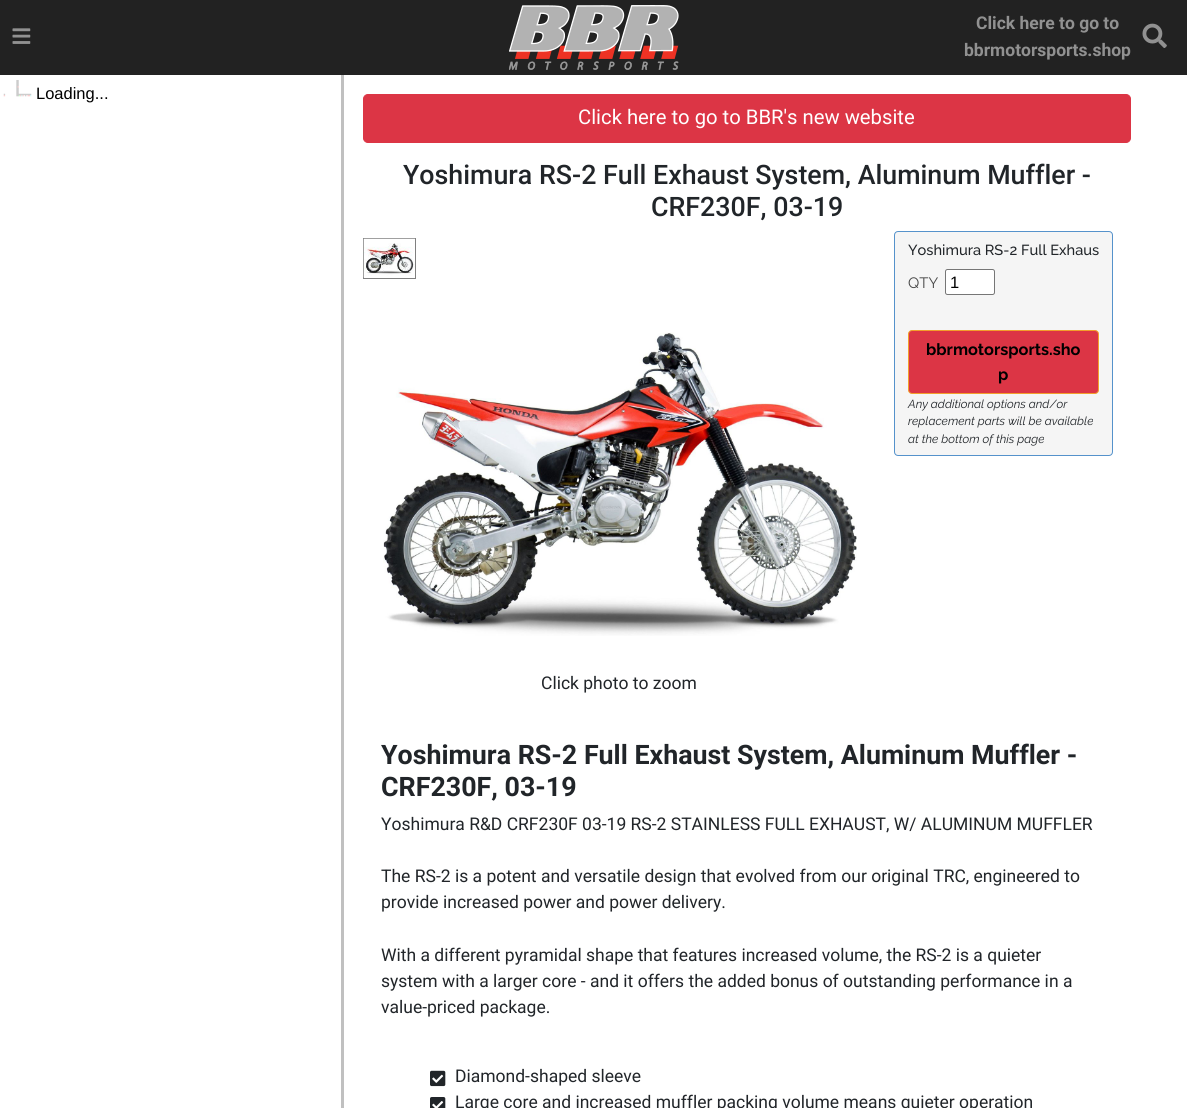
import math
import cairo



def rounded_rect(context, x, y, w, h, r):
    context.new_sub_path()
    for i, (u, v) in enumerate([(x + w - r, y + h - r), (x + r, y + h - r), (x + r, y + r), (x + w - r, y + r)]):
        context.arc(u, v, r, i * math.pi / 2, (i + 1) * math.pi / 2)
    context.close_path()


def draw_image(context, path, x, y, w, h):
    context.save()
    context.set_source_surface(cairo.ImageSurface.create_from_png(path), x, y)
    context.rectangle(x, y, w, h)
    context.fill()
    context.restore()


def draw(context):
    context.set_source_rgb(1, 1, 1)
    context.paint()
    context.set_source_rgb(34 / 255, 34 / 255, 34 / 255)
    context.rectangle(0, 0, 1187, 75)
    context.fill()
    draw_image(context, "images/1.png", 12, 28, 19, 16)
    draw_image(context, "images/2.png", 509, 5, 170, 65)
    draw_image(context, "images/3.png", 1142, 23, 25, 25)
    context.set_source_rgb(192 / 255, 192 / 255, 192 / 255)
    context.rectangle(341, 75, 3, 1033)
    context.fill()
    draw_image(context, "images/4.png", 3, 80, 29, 17)
    context.set_source_rgb(220 / 255, 53 / 255, 69 / 255)
    rounded_rect(context, 363.5, 94.5, 767, 48, 4.5)
    context.fill_preserve()
    context.set_line_width(1)
    context.stroke()
    context.set_source_rgb(245 / 255, 245 / 255, 245 / 255)
    rounded_rect(context, 894.5, 231.5, 218, 224, 3.5)
    context.fill_preserve()
    context.set_source_rgb(85 / 255, 146 / 255, 203 / 255)
    context.stroke()
    context.set_source_rgb(1, 1, 1)
    rounded_rect(context, 945.5, 269.5, 49, 25, 2)
    context.fill_preserve()
    context.set_source_rgb(118 / 255, 118 / 255, 118 / 255)
    context.stroke()
    context.set_source_rgb(220 / 255, 53 / 255, 69 / 255)
    rounded_rect(context, 908.5, 330.5, 190, 63, 3.5)
    context.fill_preserve()
    context.set_source_rgb(243 / 255, 159 / 255, 43 / 255)
    context.stroke()
    context.rectangle(363.5, 238.5, 52, 40)
    context.set_source_rgb(128 / 255, 128 / 255, 128 / 255)
    context.stroke()
    draw_image(context, "images/5.png", 363, 238, 52, 40)
    draw_image(context, "images/6.png", 383, 332, 474, 304)
    draw_image(context, "images/7.png", 430, 1070, 16, 17)
    draw_image(context, "images/8.png", 430, 1097, 16, 11)
    context.select_font_face("Roboto", cairo.FontSlant.NORMAL, cairo.FontWeight.BOLD)
    context.set_font_size(17.5)
    context.set_source_rgb(145 / 255, 145 / 255, 145 / 255)
    context.move_to(976, 29)
    context.show_text("Click here to go to")
    context.move_to(964, 56)
    context.show_text("bbrmotorsports.shop")
    context.select_font_face("Liberation Sans")
    context.set_font_size(16.5)
    context.set_source_rgb(0, 0, 0)
    context.move_to(36, 99)
    context.show_text("Loading...")
    context.select_font_face("Roboto")
    context.set_font_size(20.25)
    context.set_source_rgb(1, 1, 1)
    context.move_to(578, 124)
    context.show_text("Click here to go to BBR's new website")
    context.select_font_face("Roboto Medium")
    context.set_font_size(26.8)
    context.set_source_rgb(33 / 255, 37 / 255, 41 / 255)
    context.move_to(403, 184)
    context.show_text("Yoshimura RS-2 Full Exhaust System, Aluminum Muffler -")
    context.move_to(651, 216)
    context.show_text("CRF230F, 03-19")
    context.select_font_face("Raleway Medium")
    context.set_font_size(14.6)
    context.move_to(908, 255)
    context.show_text("Yoshimura RS-2 Full Exhaus")
    context.select_font_face("Raleway")
    context.set_font_size(15)
    context.set_source_rgb(70 / 255, 70 / 255, 70 / 255)
    context.move_to(908, 288)
    context.show_text("QTY")
    context.select_font_face("Liberation Sans")
    context.set_font_size(16.5)
    context.set_source_rgb(0, 0, 0)
    context.move_to(950, 288)
    context.show_text("1")
    context.select_font_face("Raleway", cairo.FontSlant.NORMAL, cairo.FontWeight.BOLD)
    context.set_font_size(16.25)
    context.move_to(926, 355)
    context.show_text("bbrmotorsports.sho")
    context.move_to(998, 380)
    context.show_text("p")
    context.select_font_face("Raleway", cairo.FontSlant.ITALIC)
    context.set_font_size(11.75)
    context.set_source_rgb(33 / 255, 37 / 255, 41 / 255)
    context.move_to(908, 408)
    context.show_text("Any additional options and/or")
    context.move_to(908, 425)
    context.show_text("replacement parts will be available")
    context.move_to(908, 443)
    context.show_text("at the bottom of this page")
    context.select_font_face("Roboto")
    context.set_font_size(17.5)
    context.move_to(541, 689)
    context.show_text("Click photo to zoom")
    context.select_font_face("Roboto", cairo.FontSlant.NORMAL, cairo.FontWeight.BOLD)
    context.set_font_size(26.8)
    context.move_to(381, 764)
    context.show_text("Yoshimura RS-2 Full Exhaust System, Aluminum Muffler -")
    context.move_to(381, 796)
    context.show_text("CRF230F, 03-19")
    context.select_font_face("Roboto")
    context.set_font_size(17.5)
    context.move_to(381, 830)
    context.show_text("Yoshimura R&D CRF230F 03-19 RS-2 STAINLESS FULL EXHAUST, W/ ALUMINUM MUFFLER")
    context.move_to(381, 882)
    context.show_text("The RS-2 is a potent and versatile design that evolved from our original TRC, engineered to")
    context.move_to(381, 908)
    context.show_text("provide increased power and power delivery.")
    context.move_to(381, 961)
    context.show_text("With a different pyramidal shape that features increased volume, the RS-2 is a quieter")
    context.move_to(381, 987)
    context.show_text("system with a larger core - and it offers the added bonus of outstanding performance in a")
    context.move_to(381, 1013)
    context.show_text("value-priced package.")
    context.move_to(455, 1082)
    context.show_text("Diamond-shaped sleeve")
    context.move_to(455, 1108)
    context.show_text("Large core and increased muffler packing volume means quieter operation")


surface = cairo.ImageSurface(cairo.Format.RGB24, 1187, 1108)
context = cairo.Context(surface)
options = cairo.FontOptions()
options.set_hint_metrics(cairo.HintMetrics.OFF)
options.set_hint_style(cairo.HintStyle.NONE)
context.set_font_options(options)
context.set_miter_limit(4)
draw(context)
surface.write_to_png("out.png")
